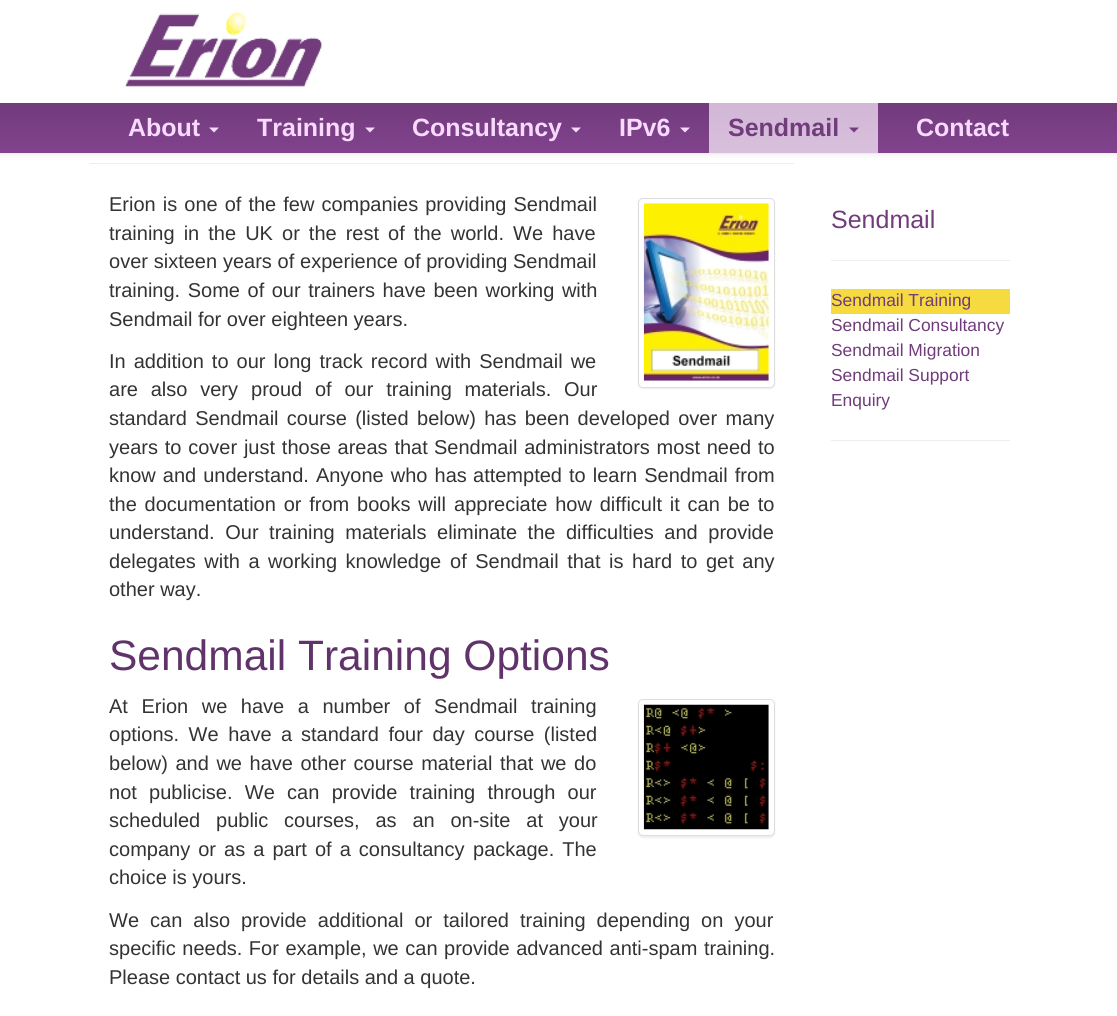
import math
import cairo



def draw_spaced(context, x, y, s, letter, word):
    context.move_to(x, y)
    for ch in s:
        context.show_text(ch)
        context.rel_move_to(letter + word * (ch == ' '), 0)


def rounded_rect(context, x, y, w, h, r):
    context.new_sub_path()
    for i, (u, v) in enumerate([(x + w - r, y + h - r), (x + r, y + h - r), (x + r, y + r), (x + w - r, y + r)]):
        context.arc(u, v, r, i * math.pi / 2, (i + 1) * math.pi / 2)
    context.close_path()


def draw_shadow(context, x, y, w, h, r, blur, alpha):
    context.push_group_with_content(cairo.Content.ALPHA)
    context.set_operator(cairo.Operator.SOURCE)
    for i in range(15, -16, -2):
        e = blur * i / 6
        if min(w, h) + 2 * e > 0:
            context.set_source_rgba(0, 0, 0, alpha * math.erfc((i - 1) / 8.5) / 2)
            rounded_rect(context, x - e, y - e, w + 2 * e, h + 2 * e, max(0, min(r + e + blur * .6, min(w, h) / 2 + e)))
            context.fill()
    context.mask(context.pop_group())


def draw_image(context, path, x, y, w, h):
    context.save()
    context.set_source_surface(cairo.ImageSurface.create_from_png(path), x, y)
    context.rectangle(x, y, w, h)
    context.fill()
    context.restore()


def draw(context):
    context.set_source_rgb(1, 1, 1)
    context.paint()
    context.set_source_rgb(238 / 255, 238 / 255, 238 / 255)
    context.rectangle(90, 163, 704, 1)
    context.fill()
    context.set_source_rgb(0, 0, 0)
    draw_shadow(context, 0, 1, 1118, 154, 0, 3, 0.07)
    context.set_source_rgb(1, 1, 1)
    context.rectangle(0, 0, 1117, 103)
    context.fill()
    context.set_source_rgb(238 / 255, 238 / 255, 238 / 255)
    context.rectangle(0, 153, 1117, 1)
    context.fill()
    draw_image(context, "images/1.png", 125, 12, 197, 75)
    gradient = cairo.LinearGradient(559, 102, 559, 153)
    gradient.add_color_stop_rgba(0, 113 / 255, 59 / 255, 124 / 255, 1)
    gradient.add_color_stop_rgba(1, 129 / 255, 67 / 255, 141 / 255, 1)
    context.set_source(gradient)
    context.rectangle(0, 103, 1117, 50)
    context.fill()
    context.set_source_rgb(249 / 255, 218 / 255, 254 / 255)
    context.new_path()
    context.move_to(209, 127.5)
    context.line_to(219, 127.5)
    context.line_to(214, 132.5)
    context.close_path()
    context.fill()
    context.new_path()
    context.move_to(365, 127.5)
    context.line_to(375, 127.5)
    context.line_to(370, 132.5)
    context.close_path()
    context.fill()
    context.new_path()
    context.move_to(571, 127.5)
    context.line_to(581, 127.5)
    context.line_to(576, 132.5)
    context.close_path()
    context.fill()
    context.new_path()
    context.move_to(680, 127.5)
    context.line_to(690, 127.5)
    context.line_to(685, 132.5)
    context.close_path()
    context.fill()
    gradient = cairo.LinearGradient(793, 103, 793, 153)
    gradient.add_color_stop_rgba(0, 210 / 255, 183 / 255, 215 / 255, 1)
    gradient.add_color_stop_rgba(1, 216 / 255, 192 / 255, 220 / 255, 1)
    context.set_source(gradient)
    context.rectangle(709, 103, 169, 50)
    context.fill()
    context.set_source_rgb(113 / 255, 59 / 255, 124 / 255)
    context.new_path()
    context.move_to(849, 127.5)
    context.line_to(859, 127.5)
    context.line_to(854, 132.5)
    context.close_path()
    context.fill()
    context.set_source_rgb(0, 0, 0)
    draw_shadow(context, 638, 199, 137, 190, 5, 1, 0.07)
    context.set_source_rgb(1, 1, 1)
    rounded_rect(context, 638.5, 198.5, 136, 189, 4.5)
    context.fill_preserve()
    context.set_source_rgb(221 / 255, 221 / 255, 221 / 255)
    context.set_line_width(1)
    context.stroke()
    draw_image(context, "images/2.png", 643, 203, 126, 178)
    context.set_source_rgb(0, 0, 0)
    draw_shadow(context, 638, 700, 137, 138, 5, 1, 0.07)
    context.set_source_rgb(1, 1, 1)
    rounded_rect(context, 638.5, 699.5, 136, 136, 4.5)
    context.fill_preserve()
    context.set_source_rgb(221 / 255, 221 / 255, 221 / 255)
    context.stroke()
    draw_image(context, "images/3.png", 643, 704, 126, 126)
    context.set_source_rgb(238 / 255, 238 / 255, 238 / 255)
    context.rectangle(831, 260, 179, 1)
    context.fill()
    context.set_source_rgb(245 / 255, 218 / 255, 64 / 255)
    context.rectangle(831, 289, 179, 25)
    context.fill()
    context.set_source_rgb(238 / 255, 238 / 255, 238 / 255)
    context.rectangle(831, 440, 179, 1)
    context.fill()
    context.select_font_face("Liberation Sans", cairo.FontSlant.NORMAL, cairo.FontWeight.BOLD)
    context.set_font_size(25)
    context.set_source_rgb(249 / 255, 218 / 255, 254 / 255)
    context.move_to(128, 136)
    context.show_text("About")
    context.move_to(257, 136)
    context.show_text("Training")
    context.move_to(412, 136)
    context.show_text("Consultancy")
    context.move_to(619, 136)
    context.show_text("IPv6")
    context.set_source_rgb(113 / 255, 59 / 255, 124 / 255)
    context.move_to(728, 136)
    context.show_text("Sendmail")
    context.set_source_rgb(249 / 255, 218 / 255, 254 / 255)
    context.move_to(916, 136)
    context.show_text("Contact")
    context.select_font_face("Liberation Sans")
    context.set_font_size(20)
    context.set_source_rgb(51 / 255, 51 / 255, 51 / 255)
    draw_spaced(context, 109, 211, "Erion is one of the few companies providing Sendmail", 0, 1.5)
    draw_spaced(context, 109, 240, "training in the UK", 0, 3.5)
    draw_spaced(context, 282, 240, "or the rest of the world. We have", 0, 3.5)
    draw_spaced(context, 109, 268, "over sixteen years of experience of providing", 0, 0.25)
    context.move_to(513, 268)
    context.show_text("Sendmail")
    draw_spaced(context, 109, 297, "training. Some of our trainers have been working with", 0, 2)
    context.move_to(109, 326)
    context.show_text("Sendmail for over eighteen years.")
    draw_spaced(context, 109, 368, "In addition to our long track record with Sendmail we", 0, 2.5)
    draw_spaced(context, 109, 396, "are also very", 0, 7.25)
    draw_spaced(context, 251, 396, "proud of our training materials. Our", 0, 7.25)
    draw_spaced(context, 109, 425, "standard Sendmail course (listed", 0, 2.75)
    draw_spaced(context, 417, 425, "below) has been developed over many", 0, 2.75)
    draw_spaced(context, 109, 454, "years to cover just those areas that", 0, 1.25)
    draw_spaced(context, 434, 454, "Sendmail administrators most need to", 0, 1.25)
    draw_spaced(context, 109, 482, "know and understand. Anyone who has", 0, 1.5)
    draw_spaced(context, 473, 482, "attempted to learn Sendmail from", 0, 1.5)
    draw_spaced(context, 109, 511, "the documentation or from books will", 0, 2.25)
    draw_spaced(context, 454, 511, "appreciate how difficult it can be to", 0, 2.25)
    draw_spaced(context, 109, 539, "understand. Our training materials", 0, 5)
    draw_spaced(context, 437, 539, "eliminate the difficulties and provide", 0, 5)
    draw_spaced(context, 109, 568, "delegates with a working knowledge", 0, 3)
    draw_spaced(context, 450, 568, "of Sendmail that is hard to get any", 0, 3)
    context.move_to(109, 596)
    context.show_text("other way.")
    context.set_font_size(42.5)
    context.set_source_rgb(97 / 255, 51 / 255, 107 / 255)
    context.move_to(109, 670)
    context.show_text("Sendmail Training Options")
    context.set_font_size(20)
    context.set_source_rgb(51 / 255, 51 / 255, 51 / 255)
    draw_spaced(context, 109, 713, "At Erion we have a number of Sendmail training", 0, 8)
    draw_spaced(context, 109, 741, "options. We have a", 0, 4)
    draw_spaced(context, 301, 741, "standard four day course (listed", 0, 4)
    draw_spaced(context, 109, 770, "below) and we have other course material", 0, 2)
    draw_spaced(context, 500, 770, "that we do", 0, 2)
    draw_spaced(context, 109, 799, "not publicise. We can provide training through our", 0, 6.75)
    context.move_to(109, 827)
    context.show_text("scheduled")
    draw_spaced(context, 216, 827, "public courses, as an on-site at your", 0, 10.25)
    draw_spaced(context, 109, 856, "company or as a part of a consultancy", 0, 2.5)
    draw_spaced(context, 473, 856, "package. The", 0, 2.5)
    context.move_to(109, 884)
    context.show_text("choice is yours.")
    draw_spaced(context, 109, 927, "We can also provide additional or tailored training depending on your", 0, 5.5)
    draw_spaced(context, 109, 955, "specific needs. For example, we can provide advanced anti-spam training.", 0, 1)
    context.move_to(109, 984)
    context.show_text("Please contact us for details and a quote.")
    context.set_font_size(25)
    context.set_source_rgb(113 / 255, 59 / 255, 124 / 255)
    context.move_to(831, 228)
    context.show_text("Sendmail")
    context.set_font_size(17.4)
    context.move_to(831, 306)
    context.show_text("Sendmail Training")
    context.move_to(831, 331)
    context.show_text("Sendmail Consultancy")
    context.move_to(831, 356)
    context.show_text("Sendmail Migration")
    context.move_to(831, 381)
    context.show_text("Sendmail Support")
    context.move_to(831, 406)
    context.show_text("Enquiry")


surface = cairo.ImageSurface(cairo.Format.RGB24, 1117, 1016)
context = cairo.Context(surface)
options = cairo.FontOptions()
options.set_hint_metrics(cairo.HintMetrics.OFF)
options.set_hint_style(cairo.HintStyle.NONE)
context.set_font_options(options)
context.set_miter_limit(4)
draw(context)
surface.write_to_png("out.png")
